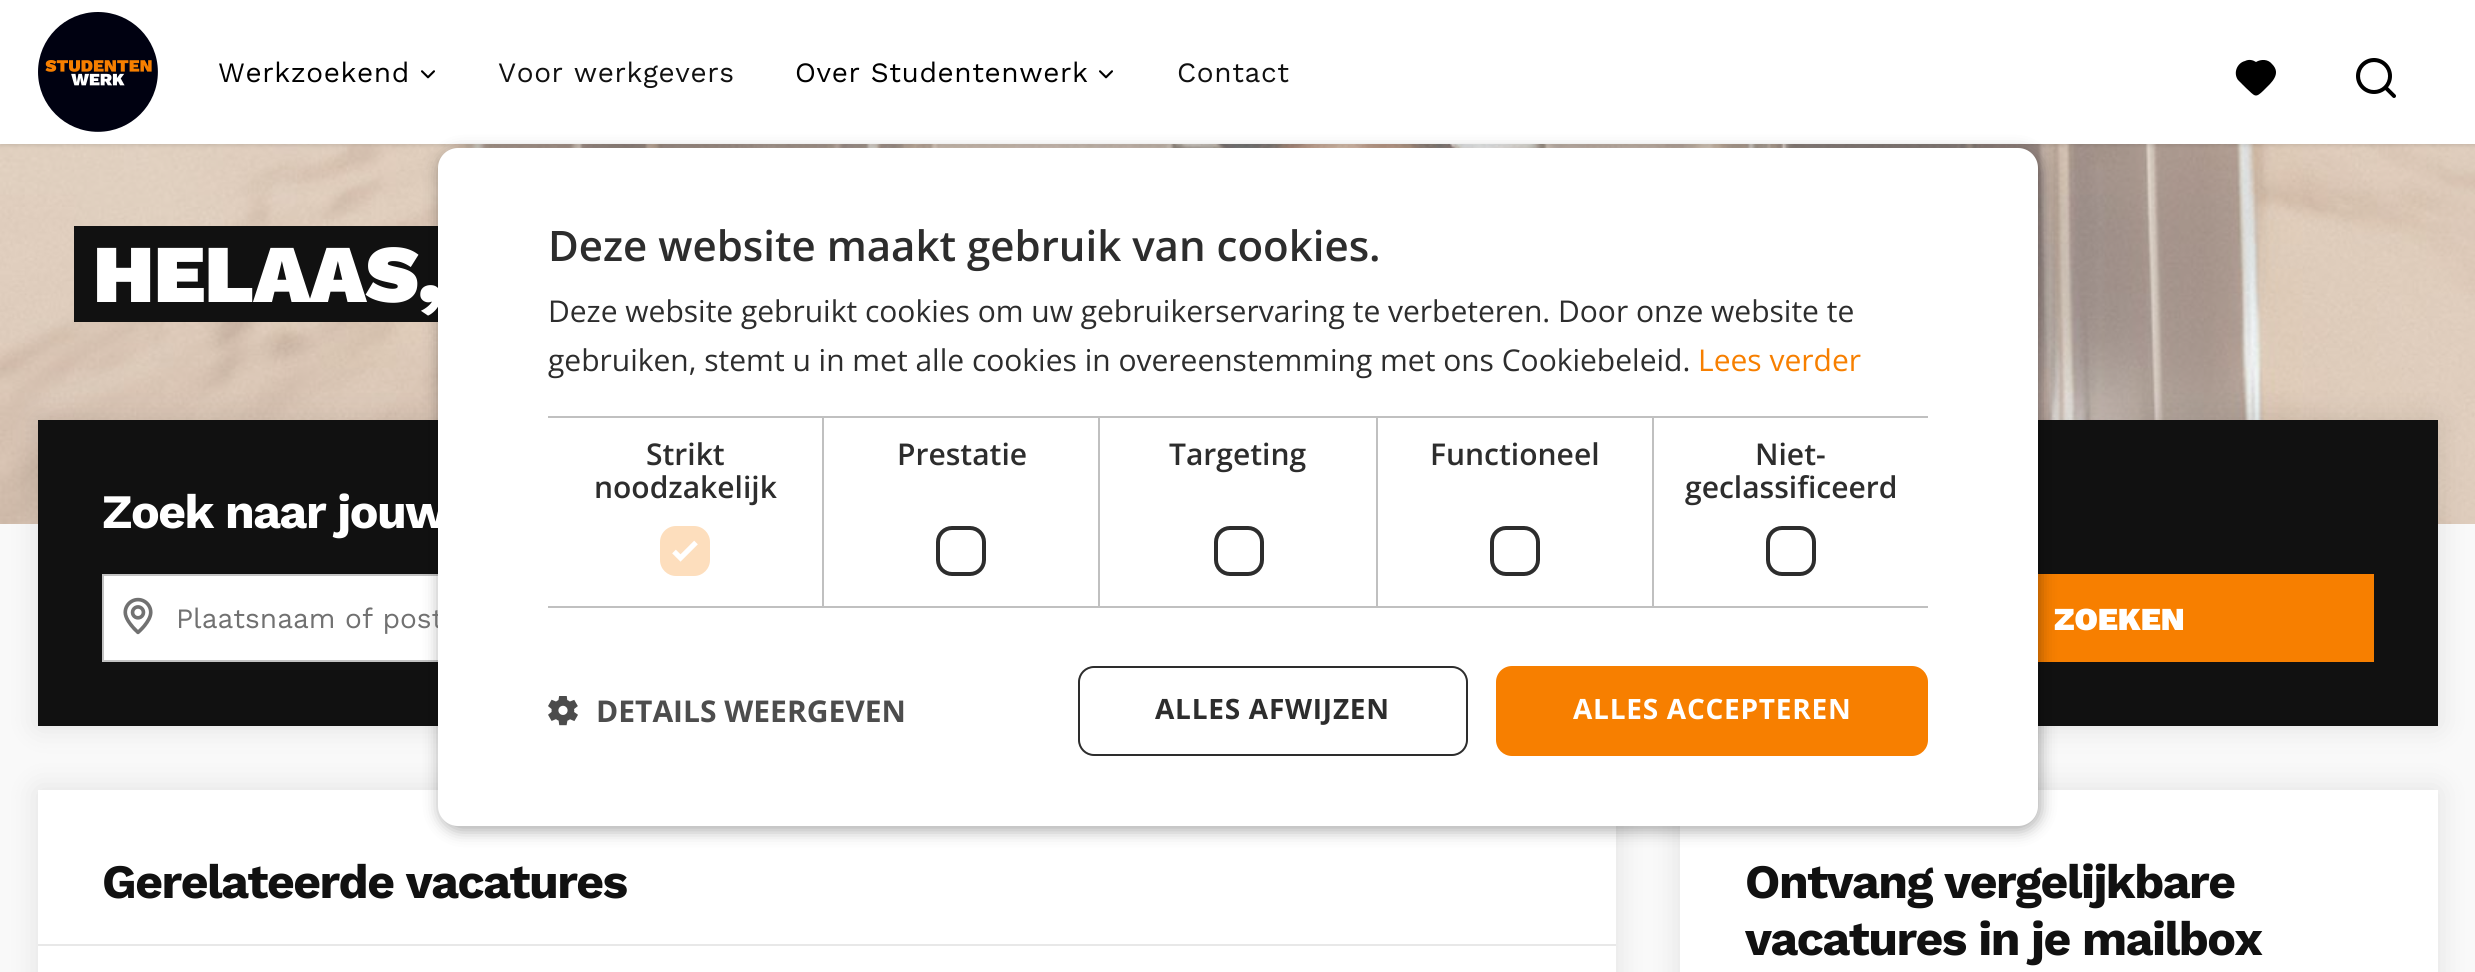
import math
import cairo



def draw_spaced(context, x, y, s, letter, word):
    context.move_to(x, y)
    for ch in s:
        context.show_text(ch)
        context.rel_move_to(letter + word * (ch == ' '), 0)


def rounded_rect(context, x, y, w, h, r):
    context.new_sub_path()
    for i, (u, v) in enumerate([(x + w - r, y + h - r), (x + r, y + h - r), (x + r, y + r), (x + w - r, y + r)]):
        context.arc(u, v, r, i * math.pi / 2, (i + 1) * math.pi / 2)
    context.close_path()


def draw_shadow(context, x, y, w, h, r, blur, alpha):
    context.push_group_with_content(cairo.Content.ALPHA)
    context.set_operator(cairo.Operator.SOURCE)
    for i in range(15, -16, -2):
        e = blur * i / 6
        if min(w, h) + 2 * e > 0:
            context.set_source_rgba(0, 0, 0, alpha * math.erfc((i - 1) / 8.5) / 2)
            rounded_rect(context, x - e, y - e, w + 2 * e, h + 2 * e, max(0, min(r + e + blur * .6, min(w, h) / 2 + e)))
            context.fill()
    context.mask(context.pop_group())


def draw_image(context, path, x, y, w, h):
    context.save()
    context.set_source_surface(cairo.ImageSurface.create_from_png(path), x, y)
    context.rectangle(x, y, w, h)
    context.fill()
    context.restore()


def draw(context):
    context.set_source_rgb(249 / 255, 249 / 255, 249 / 255)
    context.paint()
    context.set_source_rgb(238 / 255, 238 / 255, 238 / 255)
    context.rectangle(0, 144, 2475, 380)
    context.fill()
    draw_image(context, "images/4.png", 0, 144, 2475, 380)
    context.set_source_rgb(0, 0, 0)
    draw_shadow(context, 0, 2, 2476, 144, 0, 2, 0.1)
    context.set_source_rgb(1, 1, 1)
    context.rectangle(0, 0, 2475, 144)
    context.fill()
    draw_image(context, "images/1.png", 38, 12, 120, 120)
    draw_image(context, "images/2.png", 421, 70, 14, 9)
    draw_image(context, "images/2.png", 1099, 70, 14, 9)
    context.set_source_rgb(0, 0, 0)
    context.new_path()
    context.move_to(2272, 64)
    context.curve_to(2268, 59, 2261, 59, 2256, 62)
    context.curve_to(2253, 60, 2249, 59, 2245, 61)
    context.curve_to(2237, 63, 2233, 73, 2238, 80)
    context.line_to(2246, 88)
    context.curve_to(2255, 96, 2255, 99, 2264, 90)
    context.curve_to(2271, 83, 2282, 74, 2272, 64)
    context.close_path()
    context.fill()
    draw_image(context, "images/3.png", 2356, 58, 40, 40)
    context.set_source_rgb(17 / 255, 17 / 255, 17 / 255)
    context.rectangle(74, 226, 364, 96)
    context.fill()
    context.set_source_rgb(0, 0, 0)
    draw_shadow(context, 38, 420, 2400, 306, 0, 15, 0.1)
    context.set_source_rgb(17 / 255, 17 / 255, 17 / 255)
    context.rectangle(38, 420, 2400, 306)
    context.fill()
    context.set_source_rgb(1, 1, 1)
    context.rectangle(104, 576, 334, 84)
    context.fill()
    context.rectangle(103, 575, 744, 86)
    context.set_source_rgb(195 / 255, 195 / 255, 195 / 255)
    context.stroke()
    context.set_source_rgb(247 / 255, 127 / 255, 0)
    context.rectangle(2038, 574, 336, 88)
    context.fill()
    context.set_source_rgb(0, 0, 0)
    draw_shadow(context, 38, 790, 1578, 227, 0, 15, 0.1)
    context.set_source_rgb(1, 1, 1)
    context.rectangle(38, 790, 1578, 182)
    context.fill()
    context.set_source_rgb(0, 0, 0)
    draw_shadow(context, 1680, 790, 758, 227, 0, 15, 0.1)
    context.set_source_rgb(1, 1, 1)
    context.rectangle(1680, 790, 758, 182)
    context.fill()
    context.set_source_rgb(0, 0, 0)
    draw_shadow(context, 440, 152, 1600, 678, 20, 8, 0.35)
    draw_image(context, "images/6.png", 123, 597, 30, 38)
    context.set_source_rgb(232 / 255, 232 / 255, 232 / 255)
    context.rectangle(38, 944, 1578, 2)
    context.fill()
    context.select_font_face("Work Sans")
    context.set_font_size(28)
    context.set_source_rgb(0, 0, 0)
    draw_spaced(context, 218, 82, "Werkzoekend", 0.6, 0)
    context.set_source_rgb(17 / 255, 17 / 255, 17 / 255)
    draw_spaced(context, 498, 82, "Voor werkgevers", 0.6, 0)
    context.set_source_rgb(0, 0, 0)
    draw_spaced(context, 795, 82, "Over Studentenwerk", 0.6, 0)
    context.set_source_rgb(17 / 255, 17 / 255, 17 / 255)
    draw_spaced(context, 1177, 82, "Contact", 0.6, 0)
    context.select_font_face("Work Sans Black")
    context.set_font_size(82)
    context.set_source_rgb(1, 1, 1)
    draw_spaced(context, 93, 302, "HELAAS,", -0.5, 0)
    context.select_font_face("Work Sans", cairo.FontSlant.NORMAL, cairo.FontWeight.BOLD)
    context.set_font_size(48)
    draw_spaced(context, 102, 528, "Zoek naar jouw", -1.5, 0)
    context.select_font_face("Work Sans")
    context.set_font_size(28)
    context.set_source_rgb(113 / 255, 113 / 255, 113 / 255)
    context.move_to(176, 628)
    context.show_text("Plaatsnaam of post")
    context.set_source_rgb(1, 1, 1)
    rounded_rect(context, 438, 148, 1600, 678, 20)
    context.fill()
    context.select_font_face("Open Sans SemiBold")
    context.set_font_size(42)
    context.set_source_rgb(45 / 255, 45 / 255, 45 / 255)
    context.move_to(548, 261)
    context.show_text("Deze website maakt gebruik van cookies.")
    draw_image(context, "images/5.png", 548, 696, 30, 30)
    context.select_font_face("Open Sans", cairo.FontSlant.NORMAL, cairo.FontWeight.BOLD)
    context.set_font_size(30)
    context.set_source_rgb(77 / 255, 77 / 255, 77 / 255)
    context.move_to(596, 722)
    context.show_text("DETAILS WEERGEVEN")
    rounded_rect(context, 1768, 528, 46, 46, 14)
    context.set_source_rgb(45 / 255, 45 / 255, 45 / 255)
    context.set_line_width(4)
    context.stroke()
    rounded_rect(context, 1492, 528, 46, 46, 14)
    context.stroke()
    rounded_rect(context, 1216, 528, 46, 46, 14)
    context.stroke()
    rounded_rect(context, 938, 528, 46, 46, 14)
    context.stroke()
    context.set_source_rgb(253 / 255, 222 / 255, 189 / 255)
    rounded_rect(context, 660, 526, 50, 50, 16)
    context.fill()
    context.new_path()
    context.move_to(674, 551.5)
    context.line_to(680.5, 558)
    context.line_to(696, 542.5)
    context.set_source_rgb(1, 1, 1)
    context.set_line_width(5.2)
    context.stroke()
    rounded_rect(context, 1079, 667, 388, 88, 15)
    context.set_source_rgb(45 / 255, 45 / 255, 45 / 255)
    context.set_line_width(2)
    context.stroke()
    context.set_font_size(28)
    draw_spaced(context, 1155, 719, "ALLES AFWIJZEN", 0.75, 0)
    context.set_source_rgb(247 / 255, 127 / 255, 0)
    rounded_rect(context, 1496, 666, 432, 90, 16)
    context.fill()
    context.set_source_rgb(1, 1, 1)
    draw_spaced(context, 1573, 719, "ALLES ACCEPTEREN", 0.75, 0)
    context.select_font_face("Open Sans SemiBold")
    context.set_font_size(30)
    context.set_source_rgb(45 / 255, 45 / 255, 45 / 255)
    context.move_to(1685, 498)
    context.show_text("geclassificeerd")
    context.move_to(1755, 465)
    context.show_text("Niet-")
    context.move_to(1430, 465)
    context.show_text("Functioneel")
    context.set_source_rgb(192 / 255, 192 / 255, 192 / 255)
    context.rectangle(548, 416, 1380, 2)
    context.fill()
    context.rectangle(1652, 416, 2, 192)
    context.fill()
    context.rectangle(1378, 606, 550, 2)
    context.fill()
    context.set_source_rgb(45 / 255, 45 / 255, 45 / 255)
    context.move_to(1169, 465)
    context.show_text("Targeting")
    context.set_source_rgb(192 / 255, 192 / 255, 192 / 255)
    context.rectangle(1376, 416, 2, 192)
    context.fill()
    context.rectangle(1100, 606, 278, 2)
    context.fill()
    context.set_source_rgb(45 / 255, 45 / 255, 45 / 255)
    context.move_to(897, 465)
    context.show_text("Prestatie")
    context.set_source_rgb(192 / 255, 192 / 255, 192 / 255)
    context.rectangle(1098, 416, 2, 192)
    context.fill()
    context.rectangle(824, 606, 276, 2)
    context.fill()
    context.set_source_rgb(45 / 255, 45 / 255, 45 / 255)
    context.move_to(594, 498)
    context.show_text("noodzakelijk")
    context.move_to(646, 465)
    context.show_text("Strikt")
    context.set_source_rgb(192 / 255, 192 / 255, 192 / 255)
    context.rectangle(822, 416, 2, 192)
    context.fill()
    context.rectangle(548, 606, 276, 2)
    context.fill()
    context.select_font_face("Open Sans")
    context.set_source_rgb(247 / 255, 127 / 255, 0)
    context.move_to(1698, 371)
    context.show_text("Lees verder")
    context.set_source_rgb(45 / 255, 45 / 255, 45 / 255)
    context.move_to(548, 371)
    context.show_text("gebruiken, stemt u in met alle cookies in overeenstemming met ons Cookiebeleid.")
    context.move_to(548, 322)
    context.show_text("Deze website gebruikt cookies om uw gebruikerservaring te verbeteren. Door onze website te")
    context.select_font_face("Work Sans Black")
    context.set_font_size(32)
    context.set_source_rgb(1, 1, 1)
    context.move_to(2054, 630)
    context.show_text("ZOEKEN")
    context.select_font_face("Work Sans", cairo.FontSlant.NORMAL, cairo.FontWeight.BOLD)
    context.set_font_size(48)
    context.set_source_rgb(17 / 255, 17 / 255, 17 / 255)
    draw_spaced(context, 102, 898, "Gerelateerde vacatures", -1.5, 0)
    draw_spaced(context, 1745, 898, "Ontvang vergelijkbare", -1.5, 0)
    draw_spaced(context, 1745, 955, "vacatures in je mailbox", -1.5, 0)


surface = cairo.ImageSurface(cairo.Format.RGB24, 2475, 972)
context = cairo.Context(surface)
options = cairo.FontOptions()
options.set_hint_metrics(cairo.HintMetrics.OFF)
options.set_hint_style(cairo.HintStyle.NONE)
context.set_font_options(options)
context.set_miter_limit(4)
draw(context)
surface.write_to_png("out.png")
